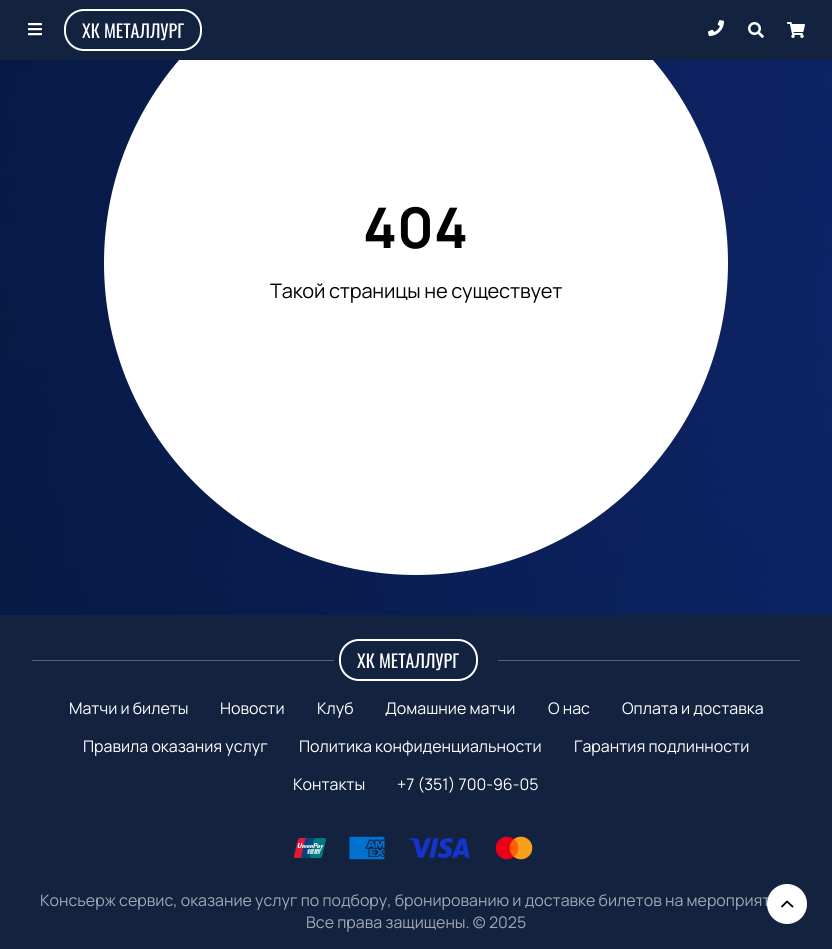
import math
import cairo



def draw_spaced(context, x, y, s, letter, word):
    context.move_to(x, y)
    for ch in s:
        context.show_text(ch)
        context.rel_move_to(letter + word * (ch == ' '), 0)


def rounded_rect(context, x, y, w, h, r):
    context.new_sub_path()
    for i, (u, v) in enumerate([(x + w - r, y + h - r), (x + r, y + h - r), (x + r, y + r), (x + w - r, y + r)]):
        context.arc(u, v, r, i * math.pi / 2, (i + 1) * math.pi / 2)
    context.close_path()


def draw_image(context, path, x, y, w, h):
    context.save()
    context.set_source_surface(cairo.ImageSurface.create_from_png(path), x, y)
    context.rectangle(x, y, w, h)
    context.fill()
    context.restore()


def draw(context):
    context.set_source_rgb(1, 1, 1)
    context.paint()
    draw_image(context, "images/9.png", 0, 60, 832, 555)
    context.set_source_rgb(1, 1, 1)
    context.arc(416, 263, 312, 0, 2 * math.pi)
    context.fill()
    context.set_source_rgb(19 / 255, 34 / 255, 63 / 255)
    context.rectangle(0, 0, 832, 60)
    context.fill()
    draw_image(context, "images/1.png", 28, 23, 16, 15)
    rounded_rect(context, 65, 10, 136, 40, 19)
    context.set_source_rgb(1, 1, 1)
    context.stroke()
    draw_image(context, "images/2.png", 708, 20, 16, 16)
    draw_image(context, "images/3.png", 748, 22, 16, 16)
    draw_image(context, "images/4.png", 787, 22, 18, 16)
    context.set_source_rgb(19 / 255, 34 / 255, 63 / 255)
    context.rectangle(0, 615, 832, 334)
    context.fill()
    context.set_source_rgb(90 / 255, 100 / 255, 121 / 255)
    context.rectangle(32, 660, 768, 1)
    context.fill()
    context.set_source_rgb(19 / 255, 34 / 255, 63 / 255)
    context.rectangle(334, 660, 164, 1)
    context.fill()
    rounded_rect(context, 340, 640, 137, 40, 19)
    context.set_source_rgb(1, 1, 1)
    context.stroke()
    draw_image(context, "images/5.png", 294, 838, 32, 20)
    draw_image(context, "images/6.png", 349, 836, 36, 24)
    draw_image(context, "images/7.png", 408, 838, 62, 20)
    draw_image(context, "images/8.png", 495, 836, 38, 24)
    context.select_font_face("Oswald")
    context.set_font_size(18)
    context.move_to(82, 38)
    context.show_text("ХК МЕТАЛЛУРГ")
    context.select_font_face("Manrope ExtraLight")
    context.set_font_size(56)
    context.set_source_rgb(0, 0, 0)
    context.move_to(363, 248)
    context.show_text("404")
    context.select_font_face("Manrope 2 ExtraLight")
    context.set_font_size(20)
    draw_spaced(context, 270, 298, "Такой страницы не существует", -0.2, 0)
    context.select_font_face("Oswald")
    context.set_font_size(18)
    context.set_source_rgb(1, 1, 1)
    context.move_to(357, 668)
    context.show_text("ХК МЕТАЛЛУРГ")
    context.select_font_face("Manrope 2 ExtraLight")
    context.set_font_size(16)
    context.move_to(69, 714)
    context.show_text("Матчи и билеты")
    context.move_to(220, 714)
    context.show_text("Новости")
    context.move_to(317, 714)
    context.show_text("Клуб")
    context.move_to(385, 714)
    context.show_text("Домашние матчи")
    context.move_to(548, 714)
    context.show_text("О нас")
    context.move_to(622, 714)
    context.show_text("Оплата и доставка")
    context.move_to(83, 752)
    context.show_text("Правила оказания услуг")
    context.move_to(299, 752)
    context.show_text("Политика конфиденциальности")
    context.move_to(574, 752)
    context.show_text("Гарантия подлинности")
    context.move_to(293, 790)
    context.show_text("Контакты")
    context.move_to(397, 790)
    context.show_text("+7 (351) 700-96-05")
    context.set_source_rgb(161 / 255, 167 / 255, 178 / 255)
    context.move_to(40, 906)
    context.show_text("Консьерж сервис, оказание услуг по подбору, бронированию и доставке билетов на мероприят")
    context.move_to(306, 928)
    context.show_text("Все права защищены. © 2025")
    context.set_source_rgb(1, 1, 1)
    context.new_path()
    context.arc(787, 904, 20, 0, 2 * math.pi)
    context.fill()
    context.new_path()
    context.move_to(793, 907)
    context.line_to(787, 901.5)
    context.line_to(781.5, 907)
    context.set_source_rgb(0, 0, 0)
    context.set_line_width(1.8)
    context.set_line_join(cairo.LineJoin.ROUND)
    context.stroke()


surface = cairo.ImageSurface(cairo.Format.RGB24, 832, 949)
context = cairo.Context(surface)
options = cairo.FontOptions()
options.set_hint_metrics(cairo.HintMetrics.OFF)
options.set_hint_style(cairo.HintStyle.NONE)
context.set_font_options(options)
context.set_miter_limit(4)
draw(context)
surface.write_to_png("out.png")
